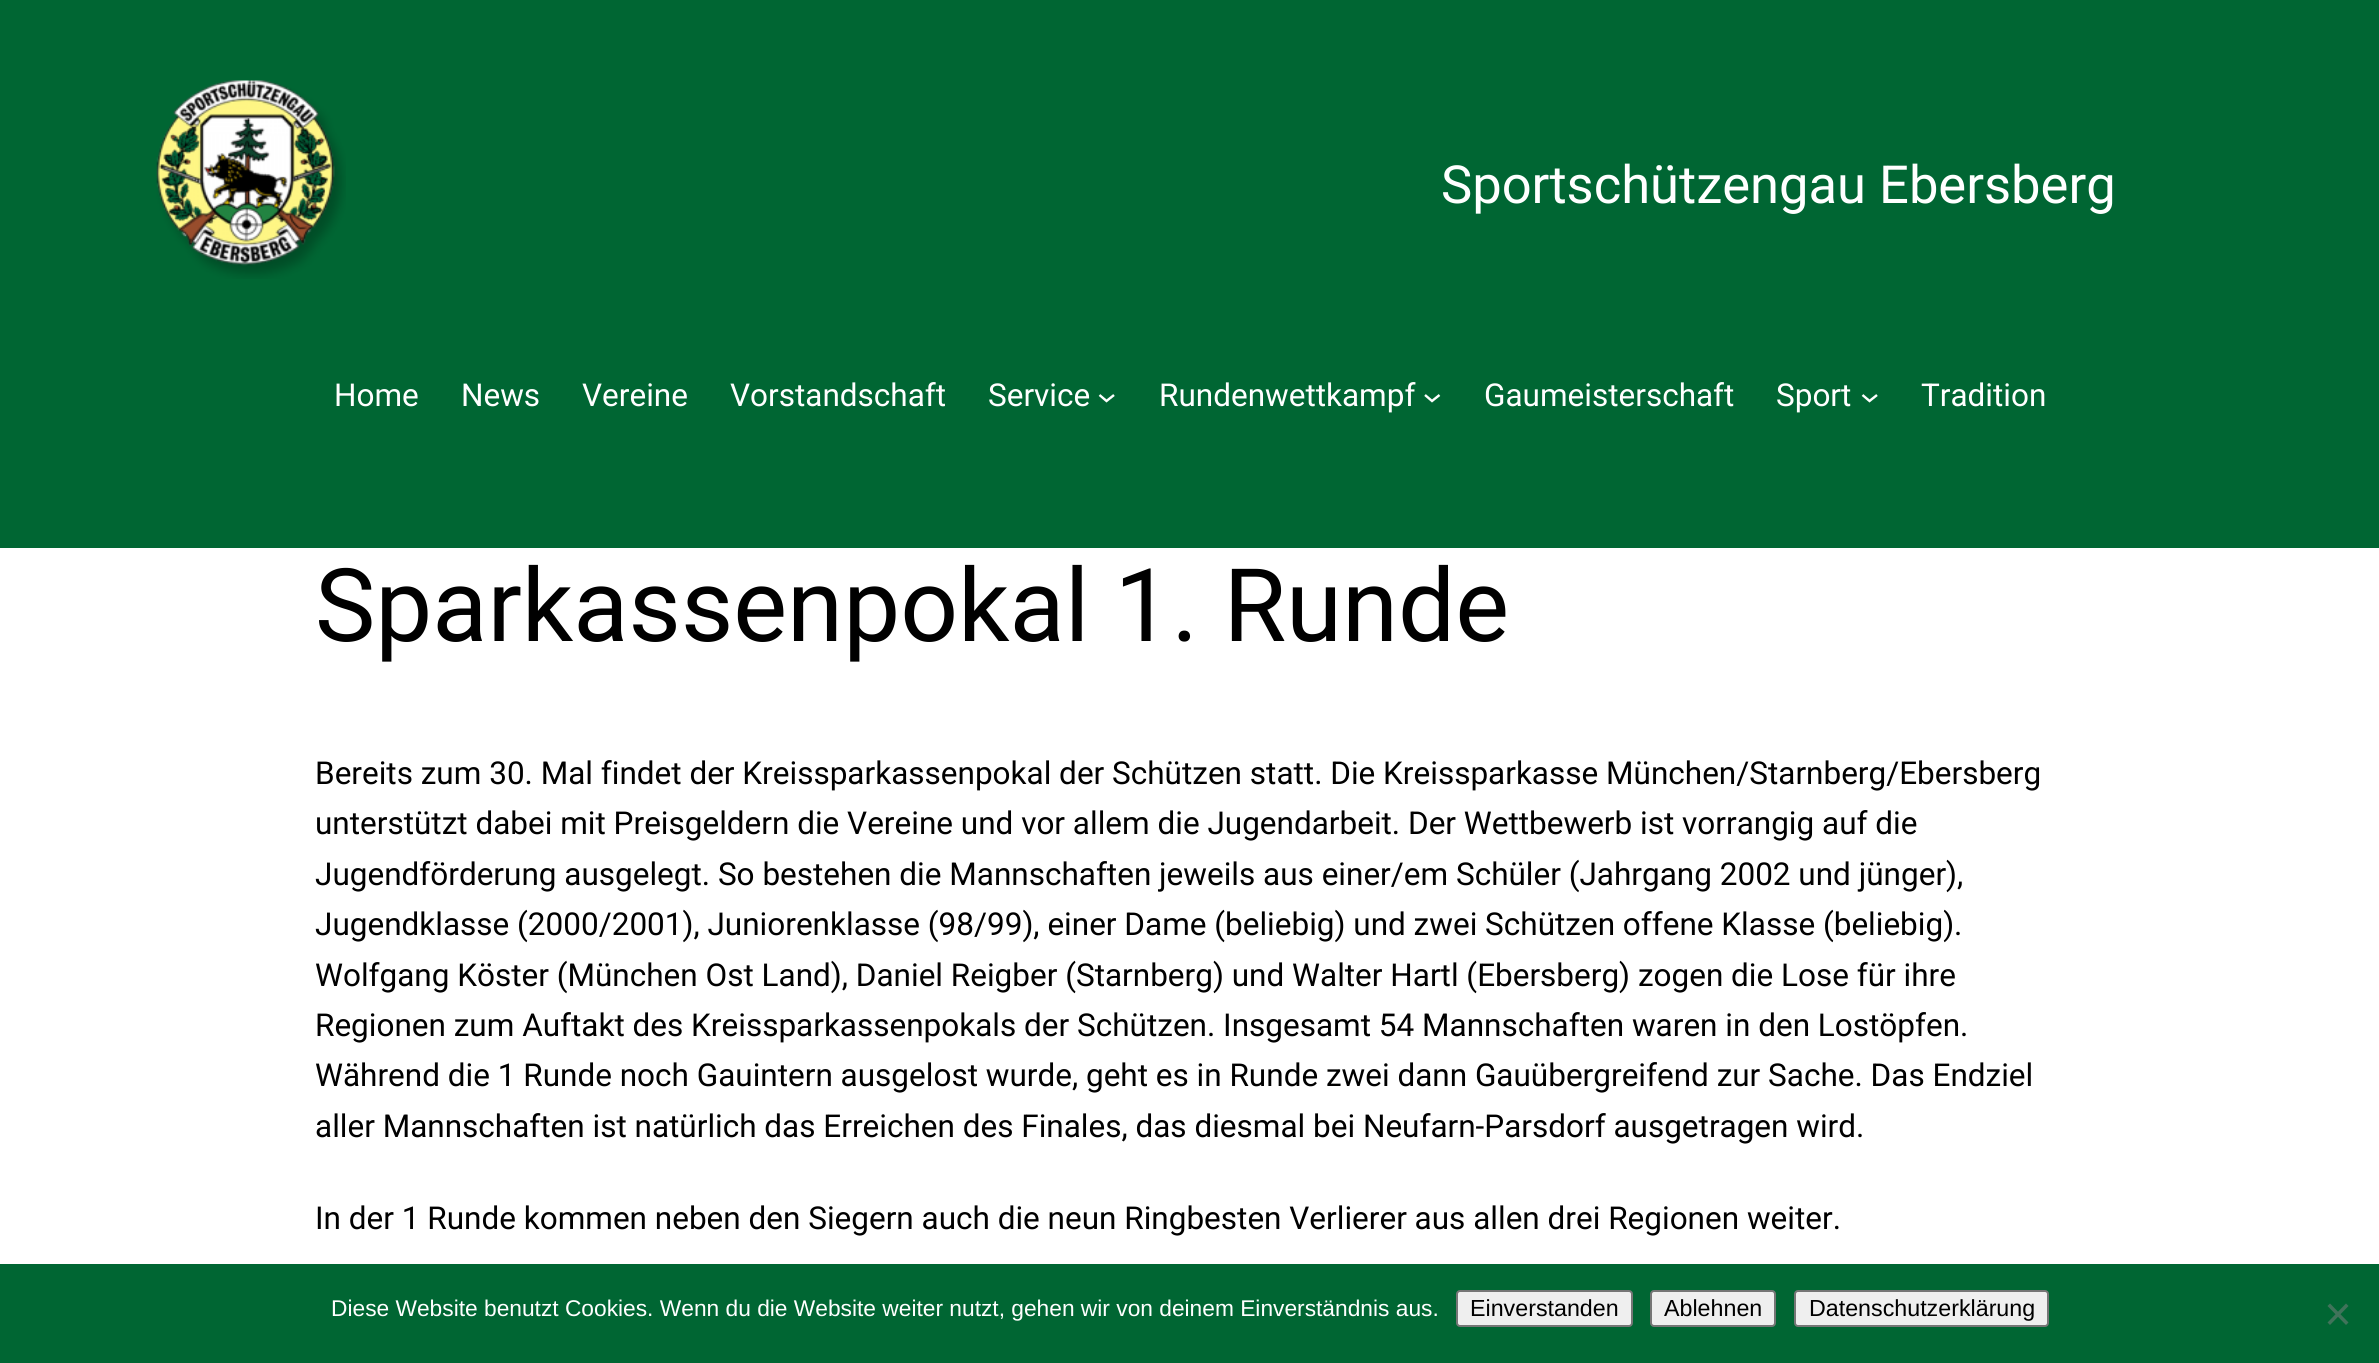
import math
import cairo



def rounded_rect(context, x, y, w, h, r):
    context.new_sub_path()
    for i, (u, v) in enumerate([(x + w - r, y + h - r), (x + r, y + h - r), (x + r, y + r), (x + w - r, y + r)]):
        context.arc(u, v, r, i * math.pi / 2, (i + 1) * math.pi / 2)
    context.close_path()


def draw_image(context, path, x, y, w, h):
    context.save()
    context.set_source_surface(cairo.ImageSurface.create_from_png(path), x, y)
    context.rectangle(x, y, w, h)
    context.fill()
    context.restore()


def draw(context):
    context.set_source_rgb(0, 102 / 255, 51 / 255)
    context.paint()
    draw_image(context, "images/1.png", 156, 80, 190, 199)
    context.new_path()
    context.move_to(1099.5, 395)
    context.line_to(1106.5, 401)
    context.line_to(1114, 395)
    context.set_source_rgb(1, 1, 1)
    context.set_line_width(2.4)
    context.stroke()
    context.new_path()
    context.move_to(1425, 395)
    context.line_to(1432, 401)
    context.line_to(1439.5, 395)
    context.stroke()
    context.new_path()
    context.move_to(1862.5, 395)
    context.line_to(1869.5, 401)
    context.line_to(1877, 395)
    context.stroke()
    context.rectangle(0, 548, 2379, 716)
    context.fill()
    context.set_source_rgb(239 / 255, 239 / 255, 239 / 255)
    rounded_rect(context, 1457, 1291, 175, 35, 3)
    context.fill_preserve()
    context.set_source_rgb(118 / 255, 118 / 255, 118 / 255)
    context.set_line_width(2)
    context.stroke()
    context.set_source_rgb(239 / 255, 239 / 255, 239 / 255)
    rounded_rect(context, 1651, 1291, 124, 35, 3)
    context.fill_preserve()
    context.set_source_rgb(118 / 255, 118 / 255, 118 / 255)
    context.stroke()
    context.set_source_rgb(239 / 255, 239 / 255, 239 / 255)
    rounded_rect(context, 1795, 1291, 253, 35, 3)
    context.fill_preserve()
    context.set_source_rgb(118 / 255, 118 / 255, 118 / 255)
    context.stroke()
    context.set_source_rgb(64 / 255, 115 / 255, 90 / 255)
    context.new_path()
    context.move_to(2346, 1303.5)
    context.line_to(2348.5, 1306)
    context.line_to(2330, 1325)
    context.line_to(2327.5, 1322.5)
    context.close_path()
    context.fill()
    context.new_path()
    context.move_to(2327.5, 1306)
    context.line_to(2330, 1303.5)
    context.line_to(2348.5, 1322.5)
    context.line_to(2346, 1325)
    context.close_path()
    context.fill()
    context.select_font_face("Roboto")
    context.set_font_size(52.5)
    context.set_source_rgb(1, 1, 1)
    context.move_to(1441, 203)
    context.show_text("Sportschützengau Ebersberg")
    context.set_font_size(31.5)
    context.move_to(334, 406)
    context.show_text("Home")
    context.move_to(461, 406)
    context.show_text("News")
    context.move_to(582, 406)
    context.show_text("Vereine")
    context.move_to(730, 406)
    context.show_text("Vorstandschaft")
    context.move_to(988, 406)
    context.show_text("Service")
    context.move_to(1159, 406)
    context.show_text("Rundenwettkampf")
    context.move_to(1484, 406)
    context.show_text("Gaumeisterschaft")
    context.move_to(1776, 406)
    context.show_text("Sport")
    context.move_to(1921, 406)
    context.show_text("Tradition")
    context.set_font_size(101.5)
    context.set_source_rgb(0, 0, 0)
    context.move_to(315, 641)
    context.show_text("Sparkassenpokal 1. Runde")
    context.set_font_size(31.5)
    context.move_to(315, 784)
    context.show_text("Bereits zum 30. Mal findet der Kreissparkassenpokal der Schützen statt. Die Kreissparkasse München/Starnberg/Ebersberg")
    context.move_to(315, 834)
    context.show_text("unterstützt dabei mit Preisgeldern die Vereine und vor allem die Jugendarbeit. Der Wettbewerb ist vorrangig auf die")
    context.move_to(315, 885)
    context.show_text("Jugendförderung ausgelegt. So bestehen die Mannschaften jeweils aus einer/em Schüler (Jahrgang 2002 und jünger),")
    context.move_to(315, 935)
    context.show_text("Jugendklasse (2000/2001), Juniorenklasse (98/99), einer Dame (beliebig) und zwei Schützen offene Klasse (beliebig).")
    context.move_to(315, 986)
    context.show_text("Wolfgang Köster (München Ost Land), Daniel Reigber (Starnberg) und Walter Hartl (Ebersberg) zogen die Lose für ihre")
    context.move_to(315, 1036)
    context.show_text("Regionen zum Auftakt des Kreissparkassenpokals der Schützen. Insgesamt 54 Mannschaften waren in den Lostöpfen.")
    context.move_to(315, 1086)
    context.show_text("Während die 1 Runde noch Gauintern ausgelost wurde, geht es in Runde zwei dann Gauübergreifend zur Sache. Das Endziel")
    context.move_to(315, 1137)
    context.show_text("aller Mannschaften ist natürlich das Erreichen des Finales, das diesmal bei Neufarn-Parsdorf ausgetragen wird.")
    context.move_to(315, 1229)
    context.show_text("In der 1 Runde kommen neben den Siegern auch die neun Ringbesten Verlierer aus allen drei Regionen weiter.")
    context.select_font_face("Liberation Sans")
    context.set_font_size(22.75)
    context.set_source_rgb(1, 1, 1)
    context.move_to(331, 1316)
    context.show_text("Diese Website benutzt Cookies. Wenn du die Website weiter nutzt, gehen wir von deinem Einverständnis aus.")
    context.set_font_size(23.25)
    context.set_source_rgb(0, 0, 0)
    context.move_to(1470, 1316)
    context.show_text("Einverstanden")
    context.move_to(1664, 1316)
    context.show_text("Ablehnen")
    context.move_to(1809, 1316)
    context.show_text("Datenschutzerklärung")


surface = cairo.ImageSurface(cairo.Format.RGB24, 2379, 1363)
context = cairo.Context(surface)
options = cairo.FontOptions()
options.set_hint_metrics(cairo.HintMetrics.OFF)
options.set_hint_style(cairo.HintStyle.NONE)
context.set_font_options(options)
context.set_miter_limit(4)
draw(context)
surface.write_to_png("out.png")
